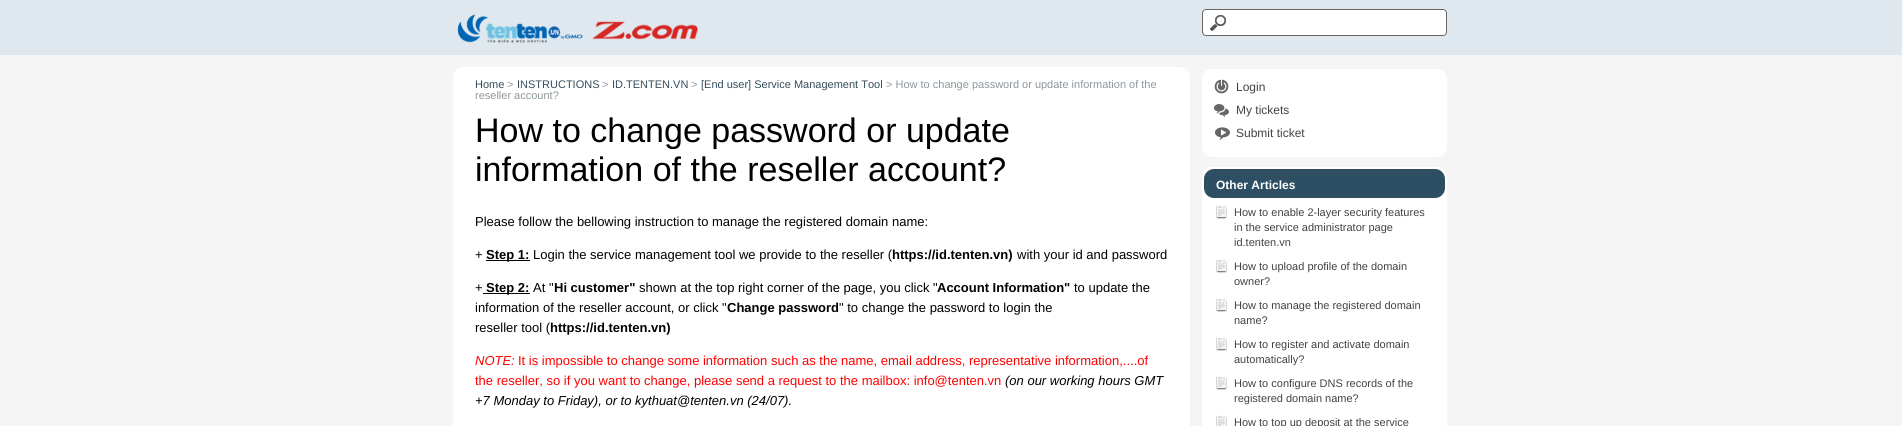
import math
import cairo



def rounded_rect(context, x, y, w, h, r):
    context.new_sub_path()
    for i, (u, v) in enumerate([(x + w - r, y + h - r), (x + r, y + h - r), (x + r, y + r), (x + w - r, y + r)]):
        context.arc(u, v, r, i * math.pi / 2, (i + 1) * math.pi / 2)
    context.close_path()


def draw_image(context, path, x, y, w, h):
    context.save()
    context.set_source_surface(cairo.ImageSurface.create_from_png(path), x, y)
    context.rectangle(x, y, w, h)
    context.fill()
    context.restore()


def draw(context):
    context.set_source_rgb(245 / 255, 245 / 255, 245 / 255)
    context.paint()
    context.set_source_rgb(222 / 255, 232 / 255, 238 / 255)
    context.rectangle(0, 0, 1902, 55)
    context.fill()
    draw_image(context, "images/1.png", 457, 14, 241, 29)
    context.set_source_rgb(1, 1, 1)
    rounded_rect(context, 1202, 9, 245, 27, 4)
    context.fill()
    draw_image(context, "images/2.png", 1210, 15, 16, 16)
    rounded_rect(context, 1202.5, 9.5, 244, 26, 3.5)
    context.set_source_rgb(102 / 255, 102 / 255, 102 / 255)
    context.set_line_width(1)
    context.stroke()
    context.set_source_rgb(1, 1, 1)
    rounded_rect(context, 453, 67, 737, 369, 10)
    context.fill()
    context.set_source_rgb(0, 0, 0)
    context.rectangle(486, 260, 44, 1)
    context.fill()
    context.rectangle(483, 293, 47, 1)
    context.fill()
    context.set_source_rgb(1, 1, 1)
    rounded_rect(context, 1202, 69, 245, 88, 10)
    context.fill()
    draw_image(context, "images/3.png", 1214, 79, 15, 15)
    draw_image(context, "images/4.png", 1214, 104, 15, 13)
    draw_image(context, "images/5.png", 1215, 127, 15, 13)
    rounded_rect(context, 1202, 167, 245, 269, 10)
    context.fill()
    context.set_source_rgb(46 / 255, 79 / 255, 99 / 255)
    rounded_rect(context, 1204, 169, 241, 29, 10)
    context.fill()
    draw_image(context, "images/6.png", 1216, 205, 11, 14)
    draw_image(context, "images/6.png", 1216, 259, 11, 14)
    draw_image(context, "images/6.png", 1216, 298, 11, 14)
    draw_image(context, "images/6.png", 1216, 337, 11, 14)
    draw_image(context, "images/6.png", 1216, 376, 11, 14)
    draw_image(context, "images/7.png", 1216, 415, 11, 11)
    context.select_font_face("Liberation Sans")
    context.set_font_size(11)
    context.set_source_rgb(52 / 255, 77 / 255, 92 / 255)
    context.move_to(475, 88)
    context.show_text("Home")
    context.set_source_rgb(141 / 255, 151 / 255, 157 / 255)
    context.move_to(507, 88)
    context.show_text(">")
    context.set_source_rgb(52 / 255, 77 / 255, 92 / 255)
    context.move_to(517, 88)
    context.show_text("INSTRUCTIONS")
    context.set_source_rgb(141 / 255, 151 / 255, 157 / 255)
    context.move_to(602, 88)
    context.show_text(">")
    context.set_source_rgb(52 / 255, 77 / 255, 92 / 255)
    context.move_to(612, 88)
    context.show_text("ID.TENTEN.VN")
    context.set_source_rgb(141 / 255, 151 / 255, 157 / 255)
    context.move_to(691, 88)
    context.show_text(">")
    context.set_source_rgb(52 / 255, 77 / 255, 92 / 255)
    context.move_to(701, 88)
    context.show_text("[End user] Service Management Tool")
    context.set_source_rgb(141 / 255, 151 / 255, 157 / 255)
    context.move_to(886, 88)
    context.show_text("> How to change password or update information of the")
    context.move_to(475, 99)
    context.show_text("reseller account?")
    context.set_font_size(34)
    context.set_source_rgb(0, 0, 0)
    context.move_to(475, 142)
    context.show_text("How to change password or update")
    context.move_to(475, 181)
    context.show_text("information of the reseller account?")
    context.set_font_size(13)
    context.move_to(475, 226)
    context.show_text("Please follow the bellowing instruction to manage the registered domain name:")
    context.move_to(475, 259)
    context.show_text("+")
    context.select_font_face("Liberation Sans", cairo.FontSlant.NORMAL, cairo.FontWeight.BOLD)
    context.move_to(486, 259)
    context.show_text("Step 1:")
    context.select_font_face("Liberation Sans")
    context.move_to(533, 259)
    context.show_text("Login the service management tool we provide to the reseller (")
    context.select_font_face("Liberation Sans", cairo.FontSlant.NORMAL, cairo.FontWeight.BOLD)
    context.move_to(892, 259)
    context.show_text("https://id.tenten.vn)")
    context.select_font_face("Liberation Sans")
    context.move_to(1017, 259)
    context.show_text("with your id and password")
    context.move_to(475, 292)
    context.show_text("+")
    context.select_font_face("Liberation Sans", cairo.FontSlant.NORMAL, cairo.FontWeight.BOLD)
    context.move_to(486, 292)
    context.show_text("Step 2:")
    context.select_font_face("Liberation Sans")
    context.move_to(533, 292)
    context.show_text("At \"")
    context.select_font_face("Liberation Sans", cairo.FontSlant.NORMAL, cairo.FontWeight.BOLD)
    context.move_to(554, 292)
    context.show_text("Hi customer\"")
    context.select_font_face("Liberation Sans")
    context.move_to(639, 292)
    context.show_text("shown at the top right corner of the page, you click \"")
    context.select_font_face("Liberation Sans", cairo.FontSlant.NORMAL, cairo.FontWeight.BOLD)
    context.move_to(937, 292)
    context.show_text("Account Information\"")
    context.select_font_face("Liberation Sans")
    context.move_to(1074, 292)
    context.show_text("to update the")
    context.move_to(475, 312)
    context.show_text("information of the reseller account, or click \"")
    context.select_font_face("Liberation Sans", cairo.FontSlant.NORMAL, cairo.FontWeight.BOLD)
    context.move_to(727, 312)
    context.show_text("Change password")
    context.select_font_face("Liberation Sans")
    context.move_to(839, 312)
    context.show_text("\" to change the password to login the")
    context.move_to(475, 332)
    context.show_text("reseller tool (")
    context.select_font_face("Liberation Sans", cairo.FontSlant.NORMAL, cairo.FontWeight.BOLD)
    context.move_to(550, 332)
    context.show_text("https://id.tenten.vn)")
    context.select_font_face("Liberation Sans", cairo.FontSlant.ITALIC)
    context.set_source_rgb(1, 0, 0)
    context.move_to(475, 365)
    context.show_text("NOTE:")
    context.select_font_face("Liberation Sans")
    context.move_to(518, 365)
    context.show_text("It is impossible to change some information such as the name, email address, representative information,....of")
    context.move_to(475, 385)
    context.show_text("the reseller, so if you want to change, please send a request to the mailbox: info@tenten.vn")
    context.select_font_face("Liberation Sans", cairo.FontSlant.ITALIC)
    context.set_source_rgb(0, 0, 0)
    context.move_to(1005, 385)
    context.show_text("(on our working hours GMT")
    context.move_to(475, 405)
    context.show_text("+7 Monday to Friday), or to kythuat@tenten.vn (24/07).")
    context.select_font_face("Liberation Sans")
    context.set_font_size(12)
    context.set_source_rgb(66 / 255, 66 / 255, 66 / 255)
    context.move_to(1236, 91)
    context.show_text("Login")
    context.move_to(1236, 114)
    context.show_text("My tickets")
    context.move_to(1236, 137)
    context.show_text("Submit ticket")
    context.select_font_face("Liberation Sans", cairo.FontSlant.NORMAL, cairo.FontWeight.BOLD)
    context.set_source_rgb(1, 1, 1)
    context.move_to(1216, 189)
    context.show_text("Other Articles")
    context.select_font_face("Liberation Sans")
    context.set_font_size(11)
    context.set_source_rgb(66 / 255, 66 / 255, 66 / 255)
    context.move_to(1234, 216)
    context.show_text("How to enable 2-layer security features")
    context.move_to(1234, 231)
    context.show_text("in the service administrator page")
    context.move_to(1234, 246)
    context.show_text("id.tenten.vn")
    context.move_to(1234, 270)
    context.show_text("How to upload profile of the domain")
    context.move_to(1234, 285)
    context.show_text("owner?")
    context.move_to(1234, 309)
    context.show_text("How to manage the registered domain")
    context.move_to(1234, 324)
    context.show_text("name?")
    context.move_to(1234, 348)
    context.show_text("How to register and activate domain")
    context.move_to(1234, 363)
    context.show_text("automatically?")
    context.move_to(1234, 387)
    context.show_text("How to configure DNS records of the")
    context.move_to(1234, 402)
    context.show_text("registered domain name?")
    context.move_to(1234, 426)
    context.show_text("How to top up deposit at the service")


surface = cairo.ImageSurface(cairo.Format.RGB24, 1902, 426)
context = cairo.Context(surface)
options = cairo.FontOptions()
options.set_hint_metrics(cairo.HintMetrics.OFF)
options.set_hint_style(cairo.HintStyle.NONE)
context.set_font_options(options)
context.set_miter_limit(4)
draw(context)
surface.write_to_png("out.png")
